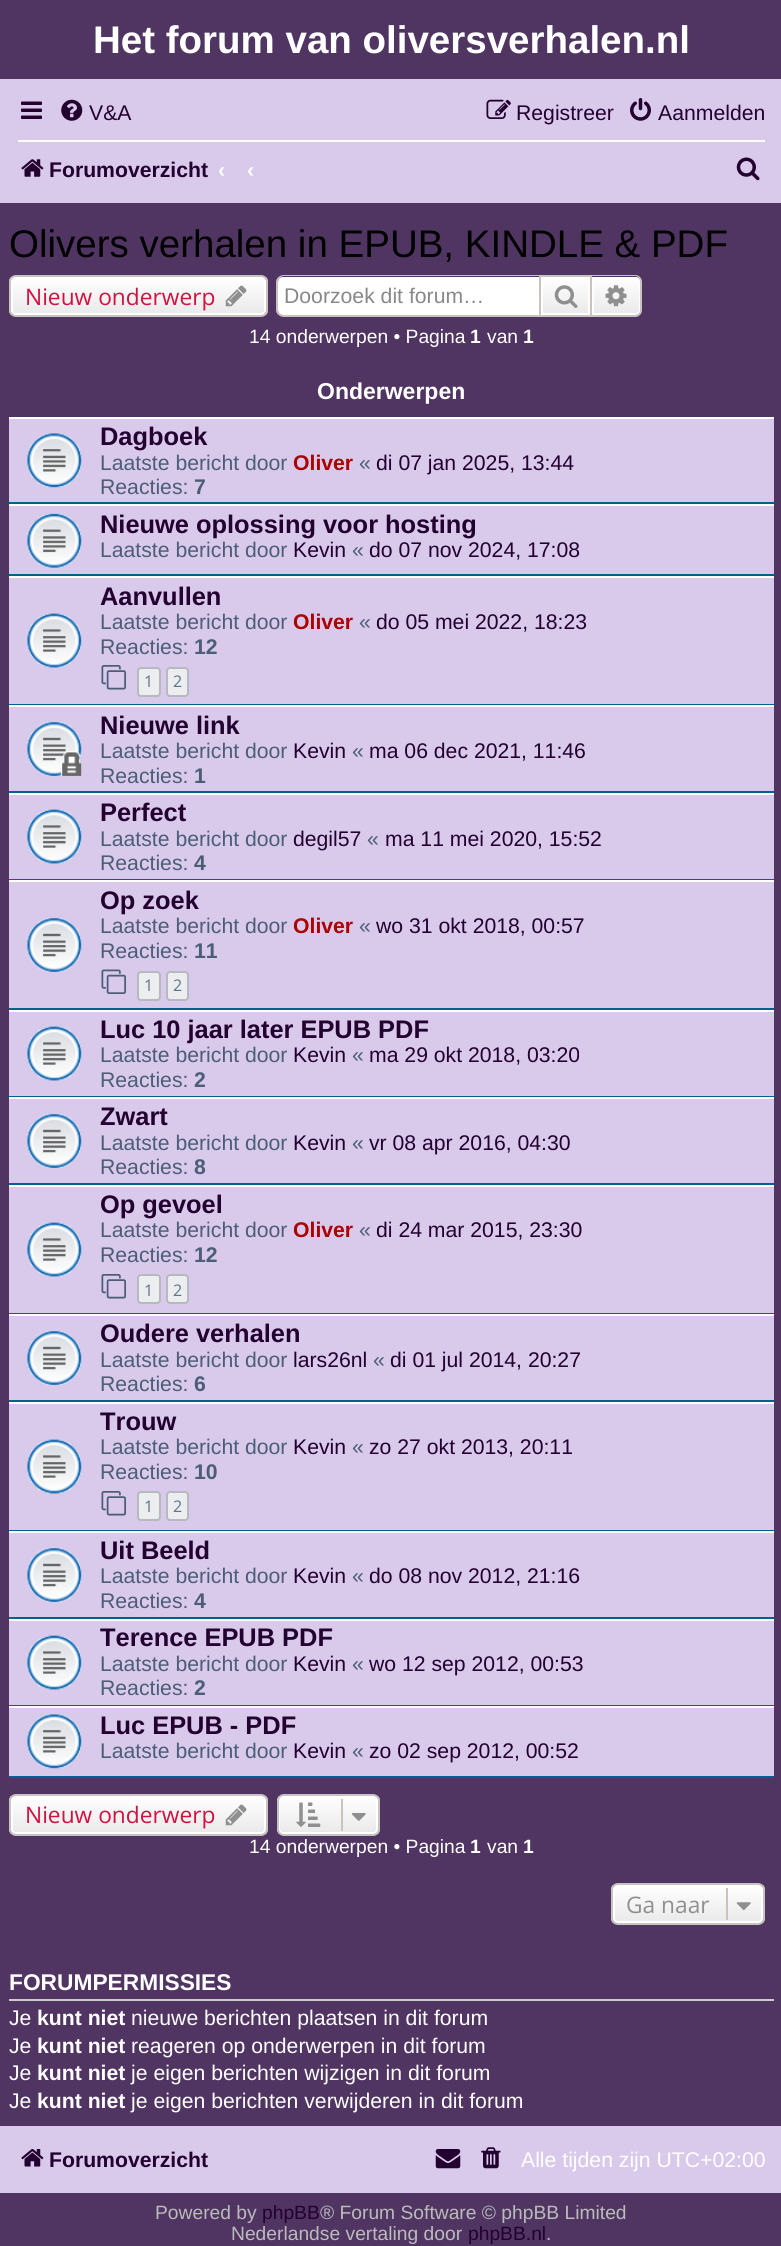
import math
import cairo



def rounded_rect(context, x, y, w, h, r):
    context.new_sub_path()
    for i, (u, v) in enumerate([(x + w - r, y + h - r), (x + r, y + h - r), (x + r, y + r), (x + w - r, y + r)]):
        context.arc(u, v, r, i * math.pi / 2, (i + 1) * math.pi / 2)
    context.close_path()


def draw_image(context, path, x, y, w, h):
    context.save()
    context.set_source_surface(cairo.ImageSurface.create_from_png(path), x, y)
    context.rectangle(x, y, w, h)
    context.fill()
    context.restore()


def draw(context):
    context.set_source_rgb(80 / 255, 53 / 255, 98 / 255)
    context.paint()
    context.set_source_rgb(217 / 255, 202 / 255, 235 / 255)
    context.rectangle(0, 79, 781, 124)
    context.fill()
    draw_image(context, "images/1.png", 21, 101, 21, 18)
    draw_image(context, "images/2.png", 61, 99, 22, 22)
    draw_image(context, "images/3.png", 486, 99, 25, 20)
    draw_image(context, "images/4.png", 630, 98, 21, 23)
    context.set_source_rgb(1, 1, 1)
    context.rectangle(18, 140, 747, 2)
    context.fill()
    draw_image(context, "images/5.png", 21, 159, 23, 18)
    draw_image(context, "images/6.png", 736, 157, 24, 24)
    context.save()
    rounded_rect(context, 9, 275, 259, 42, 7)
    context.clip()
    gradient = cairo.LinearGradient(138, 277, 138, 315)
    gradient.add_color_stop_rgba(0, 1, 1, 1, 1)
    gradient.add_color_stop_rgba(1, 233 / 255, 233 / 255, 233 / 255, 1)
    context.set_source(gradient)
    context.rectangle(9, 277, 259, 38)
    context.fill()
    context.restore()
    rounded_rect(context, 12, 278, 253, 36, 4)
    context.stroke()
    rounded_rect(context, 10, 276, 257, 40, 6)
    context.set_source_rgb(199 / 255, 195 / 255, 191 / 255)
    context.stroke()
    draw_image(context, "images/7.png", 225, 285, 22, 22)
    context.set_source_rgb(1, 1, 1)
    context.new_path()
    context.move_to(283, 277)
    context.line_to(539, 277)
    context.line_to(539, 315)
    context.line_to(283, 315)
    context.curve_to(280, 315, 278, 313, 278, 310)
    context.line_to(278, 282)
    context.curve_to(278, 279, 280, 277, 283, 277)
    context.close_path()
    context.fill()
    context.set_source_rgb(199 / 255, 195 / 255, 191 / 255)
    context.set_fill_rule(cairo.FillRule.EVEN_ODD)
    context.new_path()
    context.move_to(284, 275)
    context.line_to(539, 275)
    context.line_to(539, 317)
    context.line_to(284, 317)
    context.curve_to(280, 317, 276, 314, 276, 310)
    context.line_to(276, 282)
    context.curve_to(276, 278, 280, 275, 284, 275)
    context.close_path()
    context.move_to(284, 276)
    context.line_to(539, 276)
    context.line_to(539, 315)
    context.line_to(284, 315)
    context.curve_to(281, 315, 278, 313, 278, 310)
    context.line_to(278, 282)
    context.curve_to(278, 279, 281, 276, 284, 276)
    context.close_path()
    context.fill()
    gradient = cairo.LinearGradient(565, 277, 565, 315)
    gradient.add_color_stop_rgba(0, 1, 1, 1, 1)
    gradient.add_color_stop_rgba(1, 233 / 255, 233 / 255, 233 / 255, 1)
    context.set_source(gradient)
    context.rectangle(543, 279, 45, 34)
    context.fill()
    context.rectangle(542, 278, 47, 36)
    context.set_source_rgb(1, 1, 1)
    context.stroke()
    context.rectangle(540, 276, 51, 40)
    context.set_source_rgb(199 / 255, 195 / 255, 191 / 255)
    context.stroke()
    draw_image(context, "images/8.png", 554, 285, 24, 23)
    gradient = cairo.LinearGradient(616, 277, 616, 315)
    gradient.add_color_stop_rgba(0, 1, 1, 1, 1)
    gradient.add_color_stop_rgba(1, 233 / 255, 233 / 255, 233 / 255, 1)
    context.set_source(gradient)
    context.new_path()
    context.move_to(593, 278)
    context.line_to(636, 278)
    context.curve_to(638, 278, 640, 280, 640, 282)
    context.line_to(640, 310)
    context.curve_to(640, 312, 638, 314, 636, 314)
    context.line_to(593, 314)
    context.close_path()
    context.fill_preserve()
    context.set_source_rgb(1, 1, 1)
    context.stroke()
    context.set_source_rgb(199 / 255, 195 / 255, 191 / 255)
    context.new_path()
    context.move_to(592, 275)
    context.line_to(635, 275)
    context.curve_to(639, 275, 642, 278, 642, 282)
    context.line_to(642, 310)
    context.curve_to(642, 314, 639, 317, 635, 317)
    context.line_to(592, 317)
    context.close_path()
    context.move_to(592, 276)
    context.line_to(635, 276)
    context.curve_to(638, 276, 640, 279, 640, 282)
    context.line_to(640, 310)
    context.curve_to(640, 313, 638, 315, 635, 315)
    context.line_to(592, 315)
    context.close_path()
    context.fill()
    draw_image(context, "images/9.png", 605, 285, 22, 22)
    context.set_source_rgb(217 / 255, 202 / 255, 235 / 255)
    context.rectangle(9, 419, 765, 83)
    context.fill()
    context.set_source_rgb(1, 1, 1)
    context.rectangle(9, 417, 765, 2)
    context.fill()
    context.set_source_rgb(0, 96 / 255, 143 / 255)
    context.rectangle(9, 502, 765, 2)
    context.fill()
    draw_image(context, "images/10.png", 27, 433, 55, 55)
    context.set_source_rgb(217 / 255, 202 / 255, 235 / 255)
    context.rectangle(9, 506, 765, 68)
    context.fill()
    context.set_source_rgb(1, 1, 1)
    context.rectangle(9, 504, 765, 2)
    context.fill()
    context.set_source_rgb(0, 96 / 255, 143 / 255)
    context.rectangle(9, 574, 765, 2)
    context.fill()
    draw_image(context, "images/11.png", 27, 513, 55, 55)
    context.set_source_rgb(217 / 255, 202 / 255, 235 / 255)
    context.rectangle(9, 578, 765, 126)
    context.fill()
    context.set_source_rgb(1, 1, 1)
    context.rectangle(9, 576, 765, 2)
    context.fill()
    context.set_source_rgb(0, 96 / 255, 143 / 255)
    context.rectangle(9, 704, 765, 1)
    context.fill()
    draw_image(context, "images/12.png", 27, 613, 55, 55)
    draw_image(context, "images/13.png", 101, 665, 25, 25)
    context.set_source_rgb(236 / 255, 237 / 255, 238 / 255)
    rounded_rect(context, 138, 668, 22, 28, 3)
    context.fill_preserve()
    context.set_source_rgb(180 / 255, 186 / 255, 192 / 255)
    context.stroke()
    context.set_source_rgb(236 / 255, 237 / 255, 238 / 255)
    rounded_rect(context, 167, 668, 21, 28, 3)
    context.fill_preserve()
    context.set_source_rgb(180 / 255, 186 / 255, 192 / 255)
    context.stroke()
    context.set_source_rgb(217 / 255, 202 / 255, 235 / 255)
    context.rectangle(9, 707, 765, 84)
    context.fill()
    context.set_source_rgb(1, 1, 1)
    context.rectangle(9, 705, 765, 2)
    context.fill()
    context.set_source_rgb(0, 96 / 255, 143 / 255)
    context.rectangle(9, 791, 765, 2)
    context.fill()
    draw_image(context, "images/14.png", 27, 722, 55, 54)
    context.set_source_rgb(217 / 255, 202 / 255, 235 / 255)
    context.rectangle(9, 795, 765, 84)
    context.fill()
    context.set_source_rgb(1, 1, 1)
    context.rectangle(9, 793, 765, 2)
    context.fill()
    context.set_source_rgb(0, 96 / 255, 143 / 255)
    context.rectangle(9, 879, 765, 1)
    context.fill()
    draw_image(context, "images/15.png", 27, 809, 55, 55)
    context.set_source_rgb(217 / 255, 202 / 255, 235 / 255)
    context.rectangle(9, 882, 765, 126)
    context.fill()
    context.set_source_rgb(1, 1, 1)
    context.rectangle(9, 880, 765, 2)
    context.fill()
    context.set_source_rgb(0, 96 / 255, 143 / 255)
    context.rectangle(9, 1008, 765, 2)
    context.fill()
    draw_image(context, "images/16.png", 27, 918, 55, 54)
    draw_image(context, "images/17.png", 101, 969, 25, 25)
    context.set_source_rgb(236 / 255, 237 / 255, 238 / 255)
    rounded_rect(context, 138, 972, 22, 28, 3)
    context.fill_preserve()
    context.set_source_rgb(180 / 255, 186 / 255, 192 / 255)
    context.stroke()
    context.set_source_rgb(236 / 255, 237 / 255, 238 / 255)
    rounded_rect(context, 167, 972, 21, 28, 3)
    context.fill_preserve()
    context.set_source_rgb(180 / 255, 186 / 255, 192 / 255)
    context.stroke()
    context.set_source_rgb(217 / 255, 202 / 255, 235 / 255)
    context.rectangle(9, 1012, 765, 84)
    context.fill()
    context.set_source_rgb(1, 1, 1)
    context.rectangle(9, 1010, 765, 2)
    context.fill()
    context.set_source_rgb(0, 96 / 255, 143 / 255)
    context.rectangle(9, 1096, 765, 1)
    context.fill()
    draw_image(context, "images/12.png", 27, 1026, 55, 55)
    context.set_source_rgb(217 / 255, 202 / 255, 235 / 255)
    context.rectangle(9, 1099, 765, 84)
    context.fill()
    context.set_source_rgb(1, 1, 1)
    context.rectangle(9, 1097, 765, 2)
    context.fill()
    context.set_source_rgb(0, 96 / 255, 143 / 255)
    context.rectangle(9, 1183, 765, 2)
    context.fill()
    draw_image(context, "images/16.png", 27, 1114, 55, 54)
    context.set_source_rgb(217 / 255, 202 / 255, 235 / 255)
    context.rectangle(9, 1187, 765, 126)
    context.fill()
    context.set_source_rgb(1, 1, 1)
    context.rectangle(9, 1185, 765, 2)
    context.fill()
    context.set_source_rgb(0, 96 / 255, 143 / 255)
    context.rectangle(9, 1313, 765, 1)
    context.fill()
    draw_image(context, "images/12.png", 27, 1222, 55, 55)
    draw_image(context, "images/13.png", 101, 1274, 25, 25)
    context.set_source_rgb(236 / 255, 237 / 255, 238 / 255)
    rounded_rect(context, 138, 1275, 22, 28, 3)
    context.fill_preserve()
    context.set_source_rgb(180 / 255, 186 / 255, 192 / 255)
    context.stroke()
    context.set_source_rgb(236 / 255, 237 / 255, 238 / 255)
    rounded_rect(context, 167, 1275, 21, 28, 3)
    context.fill_preserve()
    context.set_source_rgb(180 / 255, 186 / 255, 192 / 255)
    context.stroke()
    context.set_source_rgb(217 / 255, 202 / 255, 235 / 255)
    context.rectangle(9, 1316, 765, 84)
    context.fill()
    context.set_source_rgb(1, 1, 1)
    context.rectangle(9, 1314, 765, 2)
    context.fill()
    context.set_source_rgb(0, 96 / 255, 143 / 255)
    context.rectangle(9, 1400, 765, 2)
    context.fill()
    draw_image(context, "images/16.png", 27, 1331, 55, 54)
    context.set_source_rgb(217 / 255, 202 / 255, 235 / 255)
    context.rectangle(9, 1404, 765, 126)
    context.fill()
    context.set_source_rgb(1, 1, 1)
    context.rectangle(9, 1402, 765, 2)
    context.fill()
    context.set_source_rgb(0, 96 / 255, 143 / 255)
    context.rectangle(9, 1530, 765, 1)
    context.fill()
    draw_image(context, "images/12.png", 27, 1439, 55, 55)
    draw_image(context, "images/13.png", 101, 1491, 25, 25)
    context.set_source_rgb(236 / 255, 237 / 255, 238 / 255)
    rounded_rect(context, 138, 1492, 22, 28, 3)
    context.fill_preserve()
    context.set_source_rgb(180 / 255, 186 / 255, 192 / 255)
    context.stroke()
    context.set_source_rgb(236 / 255, 237 / 255, 238 / 255)
    rounded_rect(context, 167, 1492, 21, 28, 3)
    context.fill_preserve()
    context.set_source_rgb(180 / 255, 186 / 255, 192 / 255)
    context.stroke()
    context.set_source_rgb(217 / 255, 202 / 255, 235 / 255)
    context.rectangle(9, 1533, 765, 84)
    context.fill()
    context.set_source_rgb(1, 1, 1)
    context.rectangle(9, 1531, 765, 2)
    context.fill()
    context.set_source_rgb(0, 96 / 255, 143 / 255)
    context.rectangle(9, 1617, 765, 2)
    context.fill()
    draw_image(context, "images/16.png", 27, 1548, 55, 54)
    context.set_source_rgb(217 / 255, 202 / 255, 235 / 255)
    context.rectangle(9, 1621, 765, 84)
    context.fill()
    context.set_source_rgb(1, 1, 1)
    context.rectangle(9, 1619, 765, 2)
    context.fill()
    context.set_source_rgb(0, 96 / 255, 143 / 255)
    context.rectangle(9, 1705, 765, 1)
    context.fill()
    draw_image(context, "images/18.png", 27, 1635, 55, 55)
    context.set_source_rgb(217 / 255, 202 / 255, 235 / 255)
    context.rectangle(9, 1708, 765, 68)
    context.fill()
    context.set_source_rgb(1, 1, 1)
    context.rectangle(9, 1706, 765, 2)
    context.fill()
    context.set_source_rgb(0, 96 / 255, 143 / 255)
    context.rectangle(9, 1776, 765, 2)
    context.fill()
    draw_image(context, "images/10.png", 27, 1714, 55, 55)
    context.save()
    context.set_fill_rule(cairo.FillRule.WINDING)
    rounded_rect(context, 9, 1794, 259, 42, 7)
    context.clip()
    gradient = cairo.LinearGradient(138, 1796, 138, 1834)
    gradient.add_color_stop_rgba(0, 1, 1, 1, 1)
    gradient.add_color_stop_rgba(1, 233 / 255, 233 / 255, 233 / 255, 1)
    context.set_source(gradient)
    context.rectangle(9, 1796, 259, 38)
    context.fill()
    context.restore()
    rounded_rect(context, 12, 1797, 253, 36, 4)
    context.set_source_rgb(1, 1, 1)
    context.stroke()
    rounded_rect(context, 10, 1795, 257, 40, 6)
    context.set_source_rgb(199 / 255, 195 / 255, 191 / 255)
    context.stroke()
    draw_image(context, "images/7.png", 225, 1804, 22, 22)
    context.save()
    context.set_fill_rule(cairo.FillRule.WINDING)
    rounded_rect(context, 277, 1794, 103, 42, 7)
    context.clip()
    gradient = cairo.LinearGradient(328, 1796, 328, 1834)
    gradient.add_color_stop_rgba(0, 1, 1, 1, 1)
    gradient.add_color_stop_rgba(1, 233 / 255, 233 / 255, 233 / 255, 1)
    context.set_source(gradient)
    context.rectangle(277, 1796, 103, 38)
    context.fill()
    context.restore()
    rounded_rect(context, 279, 1797, 98, 36, 4)
    context.set_source_rgb(1, 1, 1)
    context.stroke()
    rounded_rect(context, 278, 1795, 101, 40, 6)
    context.set_source_rgb(199 / 255, 195 / 255, 191 / 255)
    context.stroke()
    draw_image(context, "images/19.png", 296, 1802, 25, 25)
    context.rectangle(341, 1799, 2, 32)
    context.fill()
    draw_image(context, "images/20.png", 351, 1813, 15, 8)
    context.save()
    context.set_fill_rule(cairo.FillRule.WINDING)
    rounded_rect(context, 611, 1883, 154, 42, 7)
    context.clip()
    gradient = cairo.LinearGradient(688, 1885, 688, 1923)
    gradient.add_color_stop_rgba(0, 1, 1, 1, 1)
    gradient.add_color_stop_rgba(1, 233 / 255, 233 / 255, 233 / 255, 1)
    context.set_source(gradient)
    context.rectangle(611, 1885, 154, 38)
    context.fill()
    context.restore()
    rounded_rect(context, 614, 1886, 148, 36, 4)
    context.set_source_rgb(1, 1, 1)
    context.stroke()
    rounded_rect(context, 612, 1884, 152, 40, 6)
    context.set_source_rgb(199 / 255, 195 / 255, 191 / 255)
    context.stroke()
    context.rectangle(726, 1888, 2, 32)
    context.fill()
    draw_image(context, "images/21.png", 736, 1902, 15, 8)
    context.set_source_rgb(204 / 255, 204 / 255, 204 / 255)
    context.rectangle(9, 1999, 765, 2)
    context.fill()
    context.set_source_rgb(217 / 255, 202 / 255, 235 / 255)
    context.rectangle(0, 2126, 781, 67)
    context.fill()
    draw_image(context, "images/22.png", 21, 2149, 23, 18)
    draw_image(context, "images/23.png", 435, 2149, 26, 20)
    draw_image(context, "images/24.png", 481, 2147, 20, 22)
    context.select_font_face("Liberation Sans", cairo.FontSlant.NORMAL, cairo.FontWeight.BOLD)
    context.set_font_size(38.5)
    context.set_source_rgb(1, 1, 1)
    context.move_to(93, 53)
    context.show_text("Het forum van oliversverhalen.nl")
    context.select_font_face("Liberation Sans")
    context.set_font_size(21.2)
    context.set_source_rgb(35 / 255, 0, 48 / 255)
    context.move_to(89, 120)
    context.show_text("V&A")
    context.move_to(516, 120)
    context.show_text("Registreer")
    context.move_to(658, 120)
    context.show_text("Aanmelden")
    context.select_font_face("Liberation Sans", cairo.FontSlant.NORMAL, cairo.FontWeight.BOLD)
    context.move_to(49, 177)
    context.show_text("Forumoverzicht")
    context.set_source_rgb(1, 1, 1)
    context.move_to(218, 177)
    context.show_text("‹")
    context.move_to(247, 177)
    context.show_text("‹")
    context.select_font_face("Liberation Sans")
    context.set_font_size(38.5)
    context.set_source_rgb(0, 0, 0)
    context.move_to(9, 257)
    context.show_text("Olivers verhalen in EPUB, KINDLE & PDF")
    context.select_font_face("Open Sans")
    context.set_font_size(22.75)
    context.set_source_rgb(211 / 255, 17 / 255, 65 / 255)
    context.move_to(25, 305)
    context.show_text("Nieuw onderwerp")
    context.select_font_face("Liberation Sans")
    context.set_font_size(21.2)
    context.set_source_rgb(136 / 255, 136 / 255, 136 / 255)
    context.move_to(284, 303)
    context.show_text("Doorzoek dit forum…")
    context.set_font_size(19.25)
    context.set_source_rgb(1, 1, 1)
    context.move_to(249, 343)
    context.show_text("14 onderwerpen • Pagina")
    context.select_font_face("Liberation Sans", cairo.FontSlant.NORMAL, cairo.FontWeight.BOLD)
    context.move_to(470, 343)
    context.show_text("1")
    context.select_font_face("Liberation Sans")
    context.move_to(487, 343)
    context.show_text("van")
    context.select_font_face("Liberation Sans", cairo.FontSlant.NORMAL, cairo.FontWeight.BOLD)
    context.move_to(523, 343)
    context.show_text("1")
    context.set_font_size(23)
    context.move_to(317, 399)
    context.show_text("Onderwerpen")
    context.set_font_size(25.4)
    context.set_source_rgb(35 / 255, 0, 48 / 255)
    context.move_to(100, 445)
    context.show_text("Dagboek")
    context.select_font_face("Liberation Sans")
    context.set_font_size(21.2)
    context.set_source_rgb(76 / 255, 93 / 255, 119 / 255)
    context.move_to(100, 470)
    context.show_text("Laatste bericht door")
    context.select_font_face("Liberation Sans", cairo.FontSlant.NORMAL, cairo.FontWeight.BOLD)
    context.set_source_rgb(170 / 255, 0, 0)
    context.move_to(293, 470)
    context.show_text("Oliver")
    context.select_font_face("Liberation Sans")
    context.set_source_rgb(76 / 255, 93 / 255, 119 / 255)
    context.move_to(359, 470)
    context.show_text("«")
    context.set_source_rgb(35 / 255, 0, 48 / 255)
    context.move_to(376, 470)
    context.show_text("di 07 jan 2025, 13:44")
    context.set_source_rgb(76 / 255, 93 / 255, 119 / 255)
    context.move_to(100, 494)
    context.show_text("Reacties:")
    context.select_font_face("Liberation Sans", cairo.FontSlant.NORMAL, cairo.FontWeight.BOLD)
    context.move_to(194, 494)
    context.show_text("7")
    context.set_font_size(25.4)
    context.set_source_rgb(35 / 255, 0, 48 / 255)
    context.move_to(100, 533)
    context.show_text("Nieuwe oplossing voor hosting")
    context.select_font_face("Liberation Sans")
    context.set_font_size(21.2)
    context.set_source_rgb(76 / 255, 93 / 255, 119 / 255)
    context.move_to(100, 557)
    context.show_text("Laatste bericht door")
    context.set_source_rgb(35 / 255, 0, 48 / 255)
    context.move_to(293, 557)
    context.show_text("Kevin")
    context.set_source_rgb(76 / 255, 93 / 255, 119 / 255)
    context.move_to(352, 557)
    context.show_text("«")
    context.set_source_rgb(35 / 255, 0, 48 / 255)
    context.move_to(369, 557)
    context.show_text("do 07 nov 2024, 17:08")
    context.select_font_face("Liberation Sans", cairo.FontSlant.NORMAL, cairo.FontWeight.BOLD)
    context.set_font_size(25.4)
    context.move_to(100, 605)
    context.show_text("Aanvullen")
    context.select_font_face("Liberation Sans")
    context.set_font_size(21.2)
    context.set_source_rgb(76 / 255, 93 / 255, 119 / 255)
    context.move_to(100, 629)
    context.show_text("Laatste bericht door")
    context.select_font_face("Liberation Sans", cairo.FontSlant.NORMAL, cairo.FontWeight.BOLD)
    context.set_source_rgb(170 / 255, 0, 0)
    context.move_to(293, 629)
    context.show_text("Oliver")
    context.select_font_face("Liberation Sans")
    context.set_source_rgb(76 / 255, 93 / 255, 119 / 255)
    context.move_to(359, 629)
    context.show_text("«")
    context.set_source_rgb(35 / 255, 0, 48 / 255)
    context.move_to(376, 629)
    context.show_text("do 05 mei 2022, 18:23")
    context.set_source_rgb(76 / 255, 93 / 255, 119 / 255)
    context.move_to(100, 654)
    context.show_text("Reacties:")
    context.select_font_face("Liberation Sans", cairo.FontSlant.NORMAL, cairo.FontWeight.BOLD)
    context.move_to(194, 654)
    context.show_text("12")
    context.select_font_face("Open Sans")
    context.set_font_size(16)
    context.set_source_rgb(92 / 255, 117 / 255, 140 / 255)
    context.move_to(144, 687)
    context.show_text("1")
    context.move_to(173, 687)
    context.show_text("2")
    context.select_font_face("Liberation Sans", cairo.FontSlant.NORMAL, cairo.FontWeight.BOLD)
    context.set_font_size(25.4)
    context.set_source_rgb(35 / 255, 0, 48 / 255)
    context.move_to(100, 734)
    context.show_text("Nieuwe link")
    context.select_font_face("Liberation Sans")
    context.set_font_size(21.2)
    context.set_source_rgb(76 / 255, 93 / 255, 119 / 255)
    context.move_to(100, 758)
    context.show_text("Laatste bericht door")
    context.set_source_rgb(35 / 255, 0, 48 / 255)
    context.move_to(293, 758)
    context.show_text("Kevin")
    context.set_source_rgb(76 / 255, 93 / 255, 119 / 255)
    context.move_to(352, 758)
    context.show_text("«")
    context.set_source_rgb(35 / 255, 0, 48 / 255)
    context.move_to(369, 758)
    context.show_text("ma 06 dec 2021, 11:46")
    context.set_source_rgb(76 / 255, 93 / 255, 119 / 255)
    context.move_to(100, 783)
    context.show_text("Reacties:")
    context.select_font_face("Liberation Sans", cairo.FontSlant.NORMAL, cairo.FontWeight.BOLD)
    context.move_to(194, 783)
    context.show_text("1")
    context.set_font_size(25.4)
    context.set_source_rgb(35 / 255, 0, 48 / 255)
    context.move_to(100, 821)
    context.show_text("Perfect")
    context.select_font_face("Liberation Sans")
    context.set_font_size(21.2)
    context.set_source_rgb(76 / 255, 93 / 255, 119 / 255)
    context.move_to(100, 846)
    context.show_text("Laatste bericht door")
    context.set_source_rgb(35 / 255, 0, 48 / 255)
    context.move_to(293, 846)
    context.show_text("degil57")
    context.set_source_rgb(76 / 255, 93 / 255, 119 / 255)
    context.move_to(367, 846)
    context.show_text("«")
    context.set_source_rgb(35 / 255, 0, 48 / 255)
    context.move_to(385, 846)
    context.show_text("ma 11 mei 2020, 15:52")
    context.set_source_rgb(76 / 255, 93 / 255, 119 / 255)
    context.move_to(100, 870)
    context.show_text("Reacties:")
    context.select_font_face("Liberation Sans", cairo.FontSlant.NORMAL, cairo.FontWeight.BOLD)
    context.move_to(194, 870)
    context.show_text("4")
    context.set_font_size(25.4)
    context.set_source_rgb(35 / 255, 0, 48 / 255)
    context.move_to(100, 909)
    context.show_text("Op zoek")
    context.select_font_face("Liberation Sans")
    context.set_font_size(21.2)
    context.set_source_rgb(76 / 255, 93 / 255, 119 / 255)
    context.move_to(100, 933)
    context.show_text("Laatste bericht door")
    context.select_font_face("Liberation Sans", cairo.FontSlant.NORMAL, cairo.FontWeight.BOLD)
    context.set_source_rgb(170 / 255, 0, 0)
    context.move_to(293, 933)
    context.show_text("Oliver")
    context.select_font_face("Liberation Sans")
    context.set_source_rgb(76 / 255, 93 / 255, 119 / 255)
    context.move_to(359, 933)
    context.show_text("«")
    context.set_source_rgb(35 / 255, 0, 48 / 255)
    context.move_to(376, 933)
    context.show_text("wo 31 okt 2018, 00:57")
    context.set_source_rgb(76 / 255, 93 / 255, 119 / 255)
    context.move_to(100, 958)
    context.show_text("Reacties:")
    context.select_font_face("Liberation Sans", cairo.FontSlant.NORMAL, cairo.FontWeight.BOLD)
    context.move_to(194, 958)
    context.show_text("11")
    context.select_font_face("Open Sans")
    context.set_font_size(16)
    context.set_source_rgb(92 / 255, 117 / 255, 140 / 255)
    context.move_to(144, 991)
    context.show_text("1")
    context.move_to(173, 991)
    context.show_text("2")
    context.select_font_face("Liberation Sans", cairo.FontSlant.NORMAL, cairo.FontWeight.BOLD)
    context.set_font_size(25.4)
    context.set_source_rgb(35 / 255, 0, 48 / 255)
    context.move_to(100, 1038)
    context.show_text("Luc 10 jaar later EPUB PDF")
    context.select_font_face("Liberation Sans")
    context.set_font_size(21.2)
    context.set_source_rgb(76 / 255, 93 / 255, 119 / 255)
    context.move_to(100, 1062)
    context.show_text("Laatste bericht door")
    context.set_source_rgb(35 / 255, 0, 48 / 255)
    context.move_to(293, 1062)
    context.show_text("Kevin")
    context.set_source_rgb(76 / 255, 93 / 255, 119 / 255)
    context.move_to(352, 1062)
    context.show_text("«")
    context.set_source_rgb(35 / 255, 0, 48 / 255)
    context.move_to(369, 1062)
    context.show_text("ma 29 okt 2018, 03:20")
    context.set_source_rgb(76 / 255, 93 / 255, 119 / 255)
    context.move_to(100, 1087)
    context.show_text("Reacties:")
    context.select_font_face("Liberation Sans", cairo.FontSlant.NORMAL, cairo.FontWeight.BOLD)
    context.move_to(194, 1087)
    context.show_text("2")
    context.set_font_size(25.4)
    context.set_source_rgb(35 / 255, 0, 48 / 255)
    context.move_to(100, 1125)
    context.show_text("Zwart")
    context.select_font_face("Liberation Sans")
    context.set_font_size(21.2)
    context.set_source_rgb(76 / 255, 93 / 255, 119 / 255)
    context.move_to(100, 1150)
    context.show_text("Laatste bericht door")
    context.set_source_rgb(35 / 255, 0, 48 / 255)
    context.move_to(293, 1150)
    context.show_text("Kevin")
    context.set_source_rgb(76 / 255, 93 / 255, 119 / 255)
    context.move_to(352, 1150)
    context.show_text("«")
    context.set_source_rgb(35 / 255, 0, 48 / 255)
    context.move_to(369, 1150)
    context.show_text("vr 08 apr 2016, 04:30")
    context.set_source_rgb(76 / 255, 93 / 255, 119 / 255)
    context.move_to(100, 1174)
    context.show_text("Reacties:")
    context.select_font_face("Liberation Sans", cairo.FontSlant.NORMAL, cairo.FontWeight.BOLD)
    context.move_to(194, 1174)
    context.show_text("8")
    context.set_font_size(25.4)
    context.set_source_rgb(35 / 255, 0, 48 / 255)
    context.move_to(100, 1213)
    context.show_text("Op gevoel")
    context.select_font_face("Liberation Sans")
    context.set_font_size(21.2)
    context.set_source_rgb(76 / 255, 93 / 255, 119 / 255)
    context.move_to(100, 1237)
    context.show_text("Laatste bericht door")
    context.select_font_face("Liberation Sans", cairo.FontSlant.NORMAL, cairo.FontWeight.BOLD)
    context.set_source_rgb(170 / 255, 0, 0)
    context.move_to(293, 1237)
    context.show_text("Oliver")
    context.select_font_face("Liberation Sans")
    context.set_source_rgb(76 / 255, 93 / 255, 119 / 255)
    context.move_to(359, 1237)
    context.show_text("«")
    context.set_source_rgb(35 / 255, 0, 48 / 255)
    context.move_to(376, 1237)
    context.show_text("di 24 mar 2015, 23:30")
    context.set_source_rgb(76 / 255, 93 / 255, 119 / 255)
    context.move_to(100, 1262)
    context.show_text("Reacties:")
    context.select_font_face("Liberation Sans", cairo.FontSlant.NORMAL, cairo.FontWeight.BOLD)
    context.move_to(194, 1262)
    context.show_text("12")
    context.select_font_face("Open Sans")
    context.set_font_size(16)
    context.set_source_rgb(92 / 255, 117 / 255, 140 / 255)
    context.move_to(144, 1296)
    context.show_text("1")
    context.move_to(173, 1296)
    context.show_text("2")
    context.select_font_face("Liberation Sans", cairo.FontSlant.NORMAL, cairo.FontWeight.BOLD)
    context.set_font_size(25.4)
    context.set_source_rgb(35 / 255, 0, 48 / 255)
    context.move_to(100, 1342)
    context.show_text("Oudere verhalen")
    context.select_font_face("Liberation Sans")
    context.set_font_size(21.2)
    context.set_source_rgb(76 / 255, 93 / 255, 119 / 255)
    context.move_to(100, 1367)
    context.show_text("Laatste bericht door")
    context.set_source_rgb(35 / 255, 0, 48 / 255)
    context.move_to(293, 1367)
    context.show_text("lars26nl")
    context.set_source_rgb(76 / 255, 93 / 255, 119 / 255)
    context.move_to(373, 1367)
    context.show_text("«")
    context.set_source_rgb(35 / 255, 0, 48 / 255)
    context.move_to(390, 1367)
    context.show_text("di 01 jul 2014, 20:27")
    context.set_source_rgb(76 / 255, 93 / 255, 119 / 255)
    context.move_to(100, 1391)
    context.show_text("Reacties:")
    context.select_font_face("Liberation Sans", cairo.FontSlant.NORMAL, cairo.FontWeight.BOLD)
    context.move_to(194, 1391)
    context.show_text("6")
    context.set_font_size(25.4)
    context.set_source_rgb(35 / 255, 0, 48 / 255)
    context.move_to(100, 1430)
    context.show_text("Trouw")
    context.select_font_face("Liberation Sans")
    context.set_font_size(21.2)
    context.set_source_rgb(76 / 255, 93 / 255, 119 / 255)
    context.move_to(100, 1454)
    context.show_text("Laatste bericht door")
    context.set_source_rgb(35 / 255, 0, 48 / 255)
    context.move_to(293, 1454)
    context.show_text("Kevin")
    context.set_source_rgb(76 / 255, 93 / 255, 119 / 255)
    context.move_to(352, 1454)
    context.show_text("«")
    context.set_source_rgb(35 / 255, 0, 48 / 255)
    context.move_to(369, 1454)
    context.show_text("zo 27 okt 2013, 20:11")
    context.set_source_rgb(76 / 255, 93 / 255, 119 / 255)
    context.move_to(100, 1479)
    context.show_text("Reacties:")
    context.select_font_face("Liberation Sans", cairo.FontSlant.NORMAL, cairo.FontWeight.BOLD)
    context.move_to(194, 1479)
    context.show_text("10")
    context.select_font_face("Open Sans")
    context.set_font_size(16)
    context.set_source_rgb(92 / 255, 117 / 255, 140 / 255)
    context.move_to(144, 1512)
    context.show_text("1")
    context.move_to(173, 1512)
    context.show_text("2")
    context.select_font_face("Liberation Sans", cairo.FontSlant.NORMAL, cairo.FontWeight.BOLD)
    context.set_font_size(25.4)
    context.set_source_rgb(35 / 255, 0, 48 / 255)
    context.move_to(100, 1559)
    context.show_text("Uit Beeld")
    context.select_font_face("Liberation Sans")
    context.set_font_size(21.2)
    context.set_source_rgb(76 / 255, 93 / 255, 119 / 255)
    context.move_to(100, 1583)
    context.show_text("Laatste bericht door")
    context.set_source_rgb(35 / 255, 0, 48 / 255)
    context.move_to(293, 1583)
    context.show_text("Kevin")
    context.set_source_rgb(76 / 255, 93 / 255, 119 / 255)
    context.move_to(352, 1583)
    context.show_text("«")
    context.set_source_rgb(35 / 255, 0, 48 / 255)
    context.move_to(369, 1583)
    context.show_text("do 08 nov 2012, 21:16")
    context.set_source_rgb(76 / 255, 93 / 255, 119 / 255)
    context.move_to(100, 1608)
    context.show_text("Reacties:")
    context.select_font_face("Liberation Sans", cairo.FontSlant.NORMAL, cairo.FontWeight.BOLD)
    context.move_to(194, 1608)
    context.show_text("4")
    context.set_font_size(25.4)
    context.set_source_rgb(35 / 255, 0, 48 / 255)
    context.move_to(100, 1646)
    context.show_text("Terence EPUB PDF")
    context.select_font_face("Liberation Sans")
    context.set_font_size(21.2)
    context.set_source_rgb(76 / 255, 93 / 255, 119 / 255)
    context.move_to(100, 1671)
    context.show_text("Laatste bericht door")
    context.set_source_rgb(35 / 255, 0, 48 / 255)
    context.move_to(293, 1671)
    context.show_text("Kevin")
    context.set_source_rgb(76 / 255, 93 / 255, 119 / 255)
    context.move_to(352, 1671)
    context.show_text("«")
    context.set_source_rgb(35 / 255, 0, 48 / 255)
    context.move_to(369, 1671)
    context.show_text("wo 12 sep 2012, 00:53")
    context.set_source_rgb(76 / 255, 93 / 255, 119 / 255)
    context.move_to(100, 1695)
    context.show_text("Reacties:")
    context.select_font_face("Liberation Sans", cairo.FontSlant.NORMAL, cairo.FontWeight.BOLD)
    context.move_to(194, 1695)
    context.show_text("2")
    context.set_font_size(25.4)
    context.set_source_rgb(35 / 255, 0, 48 / 255)
    context.move_to(100, 1734)
    context.show_text("Luc EPUB - PDF")
    context.select_font_face("Liberation Sans")
    context.set_font_size(21.2)
    context.set_source_rgb(76 / 255, 93 / 255, 119 / 255)
    context.move_to(100, 1758)
    context.show_text("Laatste bericht door")
    context.set_source_rgb(35 / 255, 0, 48 / 255)
    context.move_to(293, 1758)
    context.show_text("Kevin")
    context.set_source_rgb(76 / 255, 93 / 255, 119 / 255)
    context.move_to(352, 1758)
    context.show_text("«")
    context.set_source_rgb(35 / 255, 0, 48 / 255)
    context.move_to(369, 1758)
    context.show_text("zo 02 sep 2012, 00:52")
    context.select_font_face("Open Sans")
    context.set_font_size(22.75)
    context.set_source_rgb(211 / 255, 17 / 255, 65 / 255)
    context.move_to(25, 1823)
    context.show_text("Nieuw onderwerp")
    context.select_font_face("Liberation Sans")
    context.set_font_size(19.25)
    context.set_source_rgb(1, 1, 1)
    context.move_to(249, 1853)
    context.show_text("14 onderwerpen • Pagina")
    context.select_font_face("Liberation Sans", cairo.FontSlant.NORMAL, cairo.FontWeight.BOLD)
    context.move_to(470, 1853)
    context.show_text("1")
    context.select_font_face("Liberation Sans")
    context.move_to(487, 1853)
    context.show_text("van")
    context.select_font_face("Liberation Sans", cairo.FontSlant.NORMAL, cairo.FontWeight.BOLD)
    context.move_to(523, 1853)
    context.show_text("1")
    context.select_font_face("Open Sans")
    context.set_font_size(22.75)
    context.set_source_rgb(143 / 255, 143 / 255, 143 / 255)
    context.move_to(626, 1913)
    context.show_text("Ga naar")
    context.select_font_face("Liberation Sans", cairo.FontSlant.NORMAL, cairo.FontWeight.BOLD)
    context.set_source_rgb(1, 1, 1)
    context.move_to(9, 1990)
    context.show_text("FORUMPERMISSIES")
    context.select_font_face("Liberation Sans")
    context.set_font_size(21.2)
    context.move_to(9, 2025)
    context.show_text("Je")
    context.select_font_face("Liberation Sans", cairo.FontSlant.NORMAL, cairo.FontWeight.BOLD)
    context.move_to(37, 2025)
    context.show_text("kunt niet")
    context.select_font_face("Liberation Sans")
    context.move_to(131, 2025)
    context.show_text("nieuwe berichten plaatsen in dit forum")
    context.move_to(9, 2053)
    context.show_text("Je")
    context.select_font_face("Liberation Sans", cairo.FontSlant.NORMAL, cairo.FontWeight.BOLD)
    context.move_to(37, 2053)
    context.show_text("kunt niet")
    context.select_font_face("Liberation Sans")
    context.move_to(131, 2053)
    context.show_text("reageren op onderwerpen in dit forum")
    context.move_to(9, 2080)
    context.show_text("Je")
    context.select_font_face("Liberation Sans", cairo.FontSlant.NORMAL, cairo.FontWeight.BOLD)
    context.move_to(37, 2080)
    context.show_text("kunt niet")
    context.select_font_face("Liberation Sans")
    context.move_to(131, 2080)
    context.show_text("je eigen berichten wijzigen in dit forum")
    context.move_to(9, 2108)
    context.show_text("Je")
    context.select_font_face("Liberation Sans", cairo.FontSlant.NORMAL, cairo.FontWeight.BOLD)
    context.move_to(37, 2108)
    context.show_text("kunt niet")
    context.select_font_face("Liberation Sans")
    context.move_to(131, 2108)
    context.show_text("je eigen berichten verwijderen in dit forum")
    context.select_font_face("Liberation Sans", cairo.FontSlant.NORMAL, cairo.FontWeight.BOLD)
    context.set_source_rgb(35 / 255, 0, 48 / 255)
    context.move_to(49, 2167)
    context.show_text("Forumoverzicht")
    context.select_font_face("Liberation Sans")
    context.set_source_rgb(1, 1, 1)
    context.move_to(521, 2167)
    context.show_text("Alle tijden zijn UTC+02:00")
    context.set_font_size(19.25)
    context.set_source_rgb(187 / 255, 187 / 255, 187 / 255)
    context.move_to(155, 2219)
    context.show_text("Powered by")
    context.set_source_rgb(35 / 255, 0, 48 / 255)
    context.move_to(262, 2219)
    context.show_text("phpBB")
    context.set_source_rgb(187 / 255, 187 / 255, 187 / 255)
    context.move_to(320, 2219)
    context.show_text("® Forum Software © phpBB Limited")
    context.move_to(231, 2240)
    context.show_text("Nederlandse vertaling door")
    context.set_source_rgb(35 / 255, 0, 48 / 255)
    context.move_to(468, 2240)
    context.show_text("phpBB.nl")
    context.set_source_rgb(187 / 255, 187 / 255, 187 / 255)
    context.move_to(546, 2240)
    context.show_text(".")


surface = cairo.ImageSurface(cairo.Format.RGB24, 781, 2246)
context = cairo.Context(surface)
options = cairo.FontOptions()
options.set_hint_metrics(cairo.HintMetrics.OFF)
options.set_hint_style(cairo.HintStyle.NONE)
context.set_font_options(options)
context.set_miter_limit(4)
draw(context)
surface.write_to_png("out.png")
